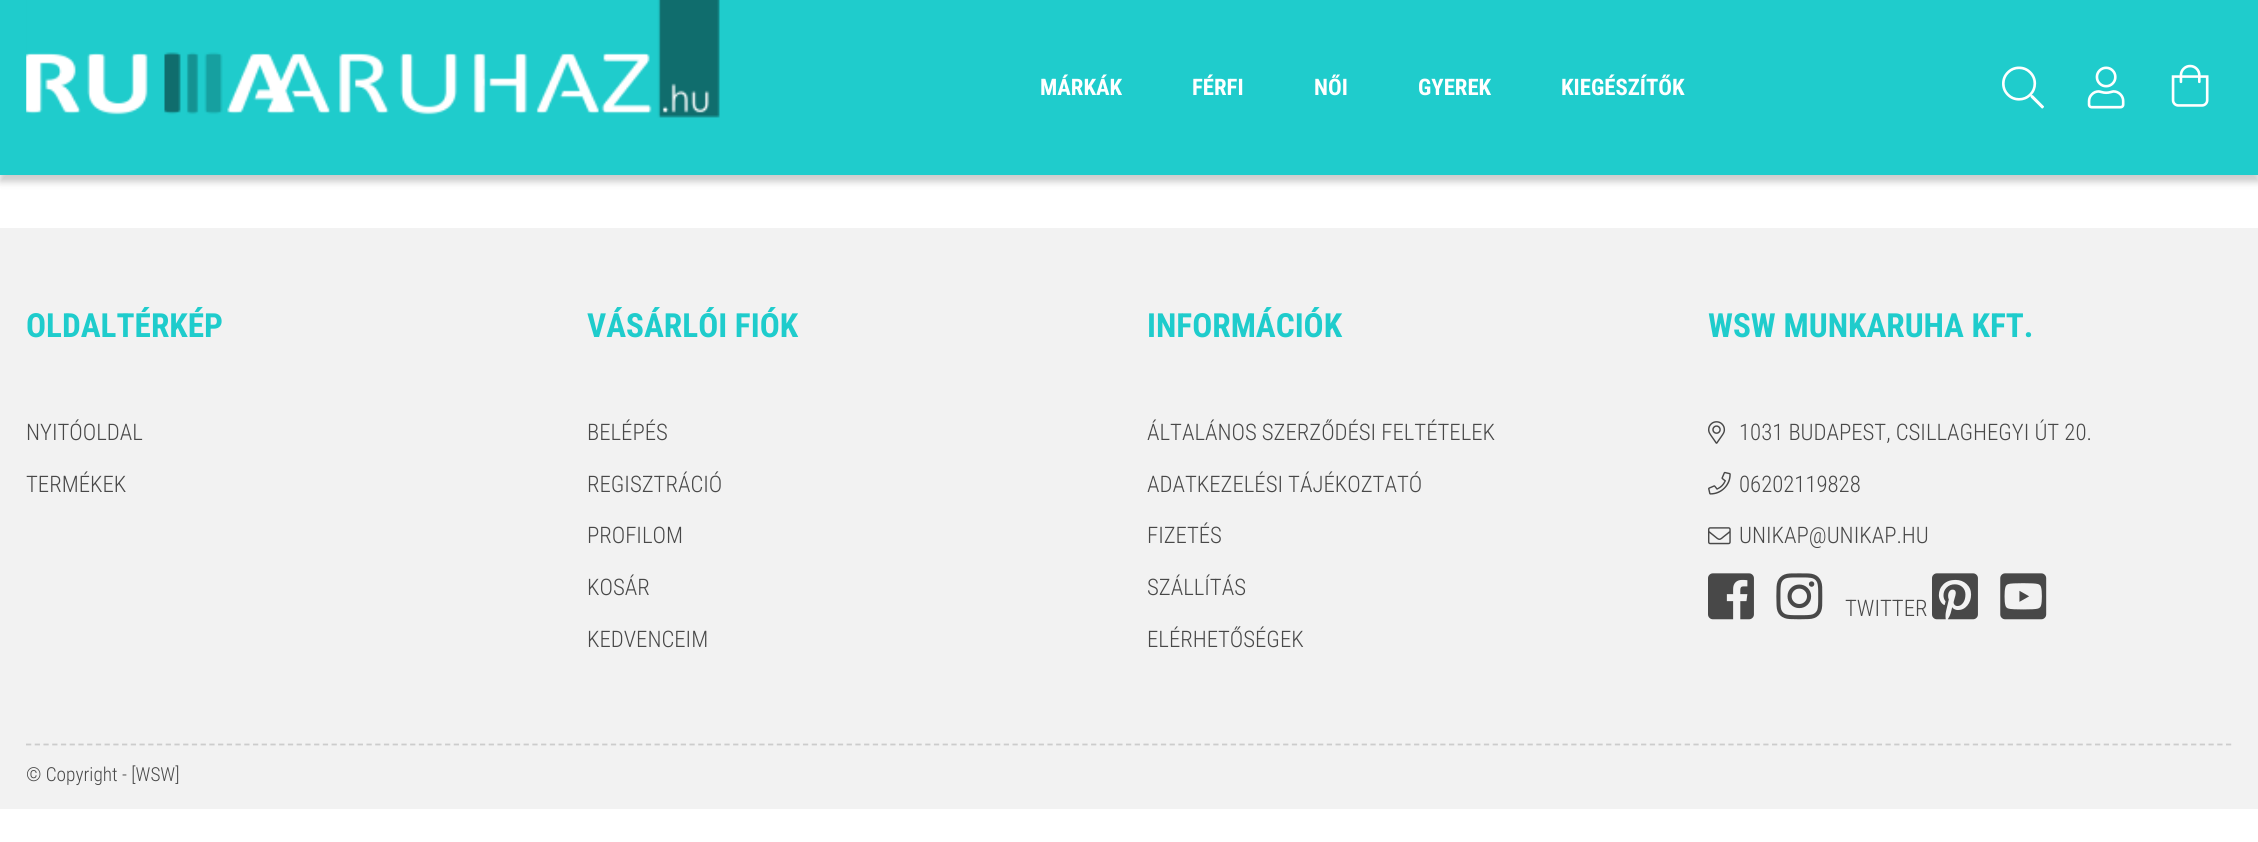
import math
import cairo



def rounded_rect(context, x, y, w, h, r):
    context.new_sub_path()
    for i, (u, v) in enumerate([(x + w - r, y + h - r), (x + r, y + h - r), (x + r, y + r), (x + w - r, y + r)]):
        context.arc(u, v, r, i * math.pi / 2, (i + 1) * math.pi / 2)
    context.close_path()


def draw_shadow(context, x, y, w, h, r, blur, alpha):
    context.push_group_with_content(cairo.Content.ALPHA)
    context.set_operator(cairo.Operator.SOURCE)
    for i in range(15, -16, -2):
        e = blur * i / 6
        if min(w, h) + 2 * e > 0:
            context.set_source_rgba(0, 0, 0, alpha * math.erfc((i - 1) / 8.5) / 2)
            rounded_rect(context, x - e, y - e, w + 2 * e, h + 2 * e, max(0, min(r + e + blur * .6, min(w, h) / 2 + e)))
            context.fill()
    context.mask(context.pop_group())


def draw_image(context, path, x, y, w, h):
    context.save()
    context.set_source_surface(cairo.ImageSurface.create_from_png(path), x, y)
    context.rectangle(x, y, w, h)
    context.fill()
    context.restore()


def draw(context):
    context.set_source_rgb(1, 1, 1)
    context.paint()
    context.set_source_rgb(0, 0, 0)
    draw_shadow(context, 0, 7, 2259, 175, 0, 3.5, 0.2)
    context.set_source_rgb(31 / 255, 204 / 255, 204 / 255)
    context.rectangle(0, 0, 2258, 175)
    context.fill()
    draw_image(context, "images/1.png", 26, 0, 694, 118)
    draw_image(context, "images/2.png", 2002, 66, 42, 43)
    draw_image(context, "images/3.png", 2087, 66, 38, 43)
    draw_image(context, "images/4.png", 2171, 64, 38, 43)
    context.set_source_rgb(242 / 255, 242 / 255, 242 / 255)
    context.rectangle(0, 228, 2258, 581)
    context.fill()
    draw_image(context, "images/5.png", 1708, 421, 18, 23)
    draw_image(context, "images/6.png", 1708, 471, 23, 24)
    draw_image(context, "images/7.png", 1708, 527, 23, 18)
    draw_image(context, "images/8.png", 1708, 573, 46, 47)
    draw_image(context, "images/9.png", 1776, 573, 47, 47)
    draw_image(context, "images/10.png", 1932, 573, 46, 47)
    draw_image(context, "images/11.png", 2000, 573, 47, 47)
    context.new_path()
    context.move_to(26, 744.5)
    context.line_to(2233, 744.5)
    context.set_source_rgb(204 / 255, 204 / 255, 204 / 255)
    context.set_line_width(1.8)
    context.set_dash([5.25, 3.48])
    context.stroke()
    context.save()
    context.rectangle(1040, 74, 82, 28)
    context.clip()
    context.select_font_face("Roboto Condensed", cairo.FontSlant.NORMAL, cairo.FontWeight.BOLD)
    context.set_font_size(22.75)
    context.set_source_rgb(1, 1, 1)
    context.move_to(1040, 95)
    context.show_text("MÁRKÁK")
    context.restore()
    context.select_font_face("Roboto Condensed", cairo.FontSlant.NORMAL, cairo.FontWeight.BOLD)
    context.set_font_size(22.75)
    context.set_source_rgb(1, 1, 1)
    context.move_to(1192, 95)
    context.show_text("FÉRFI")
    context.move_to(1314, 95)
    context.show_text("NŐI")
    context.move_to(1418, 95)
    context.show_text("GYEREK")
    context.move_to(1561, 95)
    context.show_text("KIEGÉSZÍTŐK")
    context.set_font_size(33.25)
    context.set_source_rgb(31 / 255, 204 / 255, 204 / 255)
    context.move_to(26, 337)
    context.show_text("OLDALTÉRKÉP")
    context.select_font_face("Roboto Condensed Light")
    context.set_font_size(22.75)
    context.set_source_rgb(72 / 255, 72 / 255, 72 / 255)
    context.move_to(26, 440)
    context.show_text("NYITÓOLDAL")
    context.move_to(26, 492)
    context.show_text("TERMÉKEK")
    context.select_font_face("Roboto Condensed", cairo.FontSlant.NORMAL, cairo.FontWeight.BOLD)
    context.set_font_size(33.25)
    context.set_source_rgb(31 / 255, 204 / 255, 204 / 255)
    context.move_to(587, 337)
    context.show_text("VÁSÁRLÓI FIÓK")
    context.select_font_face("Roboto Condensed Light")
    context.set_font_size(22.75)
    context.set_source_rgb(72 / 255, 72 / 255, 72 / 255)
    context.move_to(587, 440)
    context.show_text("BELÉPÉS")
    context.move_to(587, 492)
    context.show_text("REGISZTRÁCIÓ")
    context.move_to(587, 543)
    context.show_text("PROFILOM")
    context.move_to(587, 595)
    context.show_text("KOSÁR")
    context.move_to(587, 647)
    context.show_text("KEDVENCEIM")
    context.select_font_face("Roboto Condensed", cairo.FontSlant.NORMAL, cairo.FontWeight.BOLD)
    context.set_font_size(33.25)
    context.set_source_rgb(31 / 255, 204 / 255, 204 / 255)
    context.move_to(1147, 337)
    context.show_text("INFORMÁCIÓK")
    context.select_font_face("Roboto Condensed Light")
    context.set_font_size(22.75)
    context.set_source_rgb(72 / 255, 72 / 255, 72 / 255)
    context.move_to(1147, 440)
    context.show_text("ÁLTALÁNOS SZERZŐDÉSI FELTÉTELEK")
    context.move_to(1147, 492)
    context.show_text("ADATKEZELÉSI TÁJÉKOZTATÓ")
    context.move_to(1147, 543)
    context.show_text("FIZETÉS")
    context.move_to(1147, 595)
    context.show_text("SZÁLLÍTÁS")
    context.move_to(1147, 647)
    context.show_text("ELÉRHETŐSÉGEK")
    context.select_font_face("Roboto Condensed", cairo.FontSlant.NORMAL, cairo.FontWeight.BOLD)
    context.set_font_size(33.25)
    context.set_source_rgb(31 / 255, 204 / 255, 204 / 255)
    context.move_to(1708, 337)
    context.show_text("WSW MUNKARUHA KFT.")
    context.select_font_face("Roboto Condensed Light")
    context.set_font_size(22.75)
    context.set_source_rgb(72 / 255, 72 / 255, 72 / 255)
    context.move_to(1739, 440)
    context.show_text("1031 BUDAPEST, CSILLAGHEGYI ÚT 20.")
    context.move_to(1739, 492)
    context.show_text("06202119828")
    context.move_to(1739, 543)
    context.show_text("UNIKAP@UNIKAP.HU")
    context.move_to(1845, 616)
    context.show_text("TWITTER")
    context.set_font_size(19.25)
    context.move_to(26, 781)
    context.show_text("© Copyright - [WSW]")


surface = cairo.ImageSurface(cairo.Format.RGB24, 2258, 842)
context = cairo.Context(surface)
options = cairo.FontOptions()
options.set_hint_metrics(cairo.HintMetrics.OFF)
options.set_hint_style(cairo.HintStyle.NONE)
context.set_font_options(options)
context.set_miter_limit(4)
draw(context)
surface.write_to_png("out.png")
